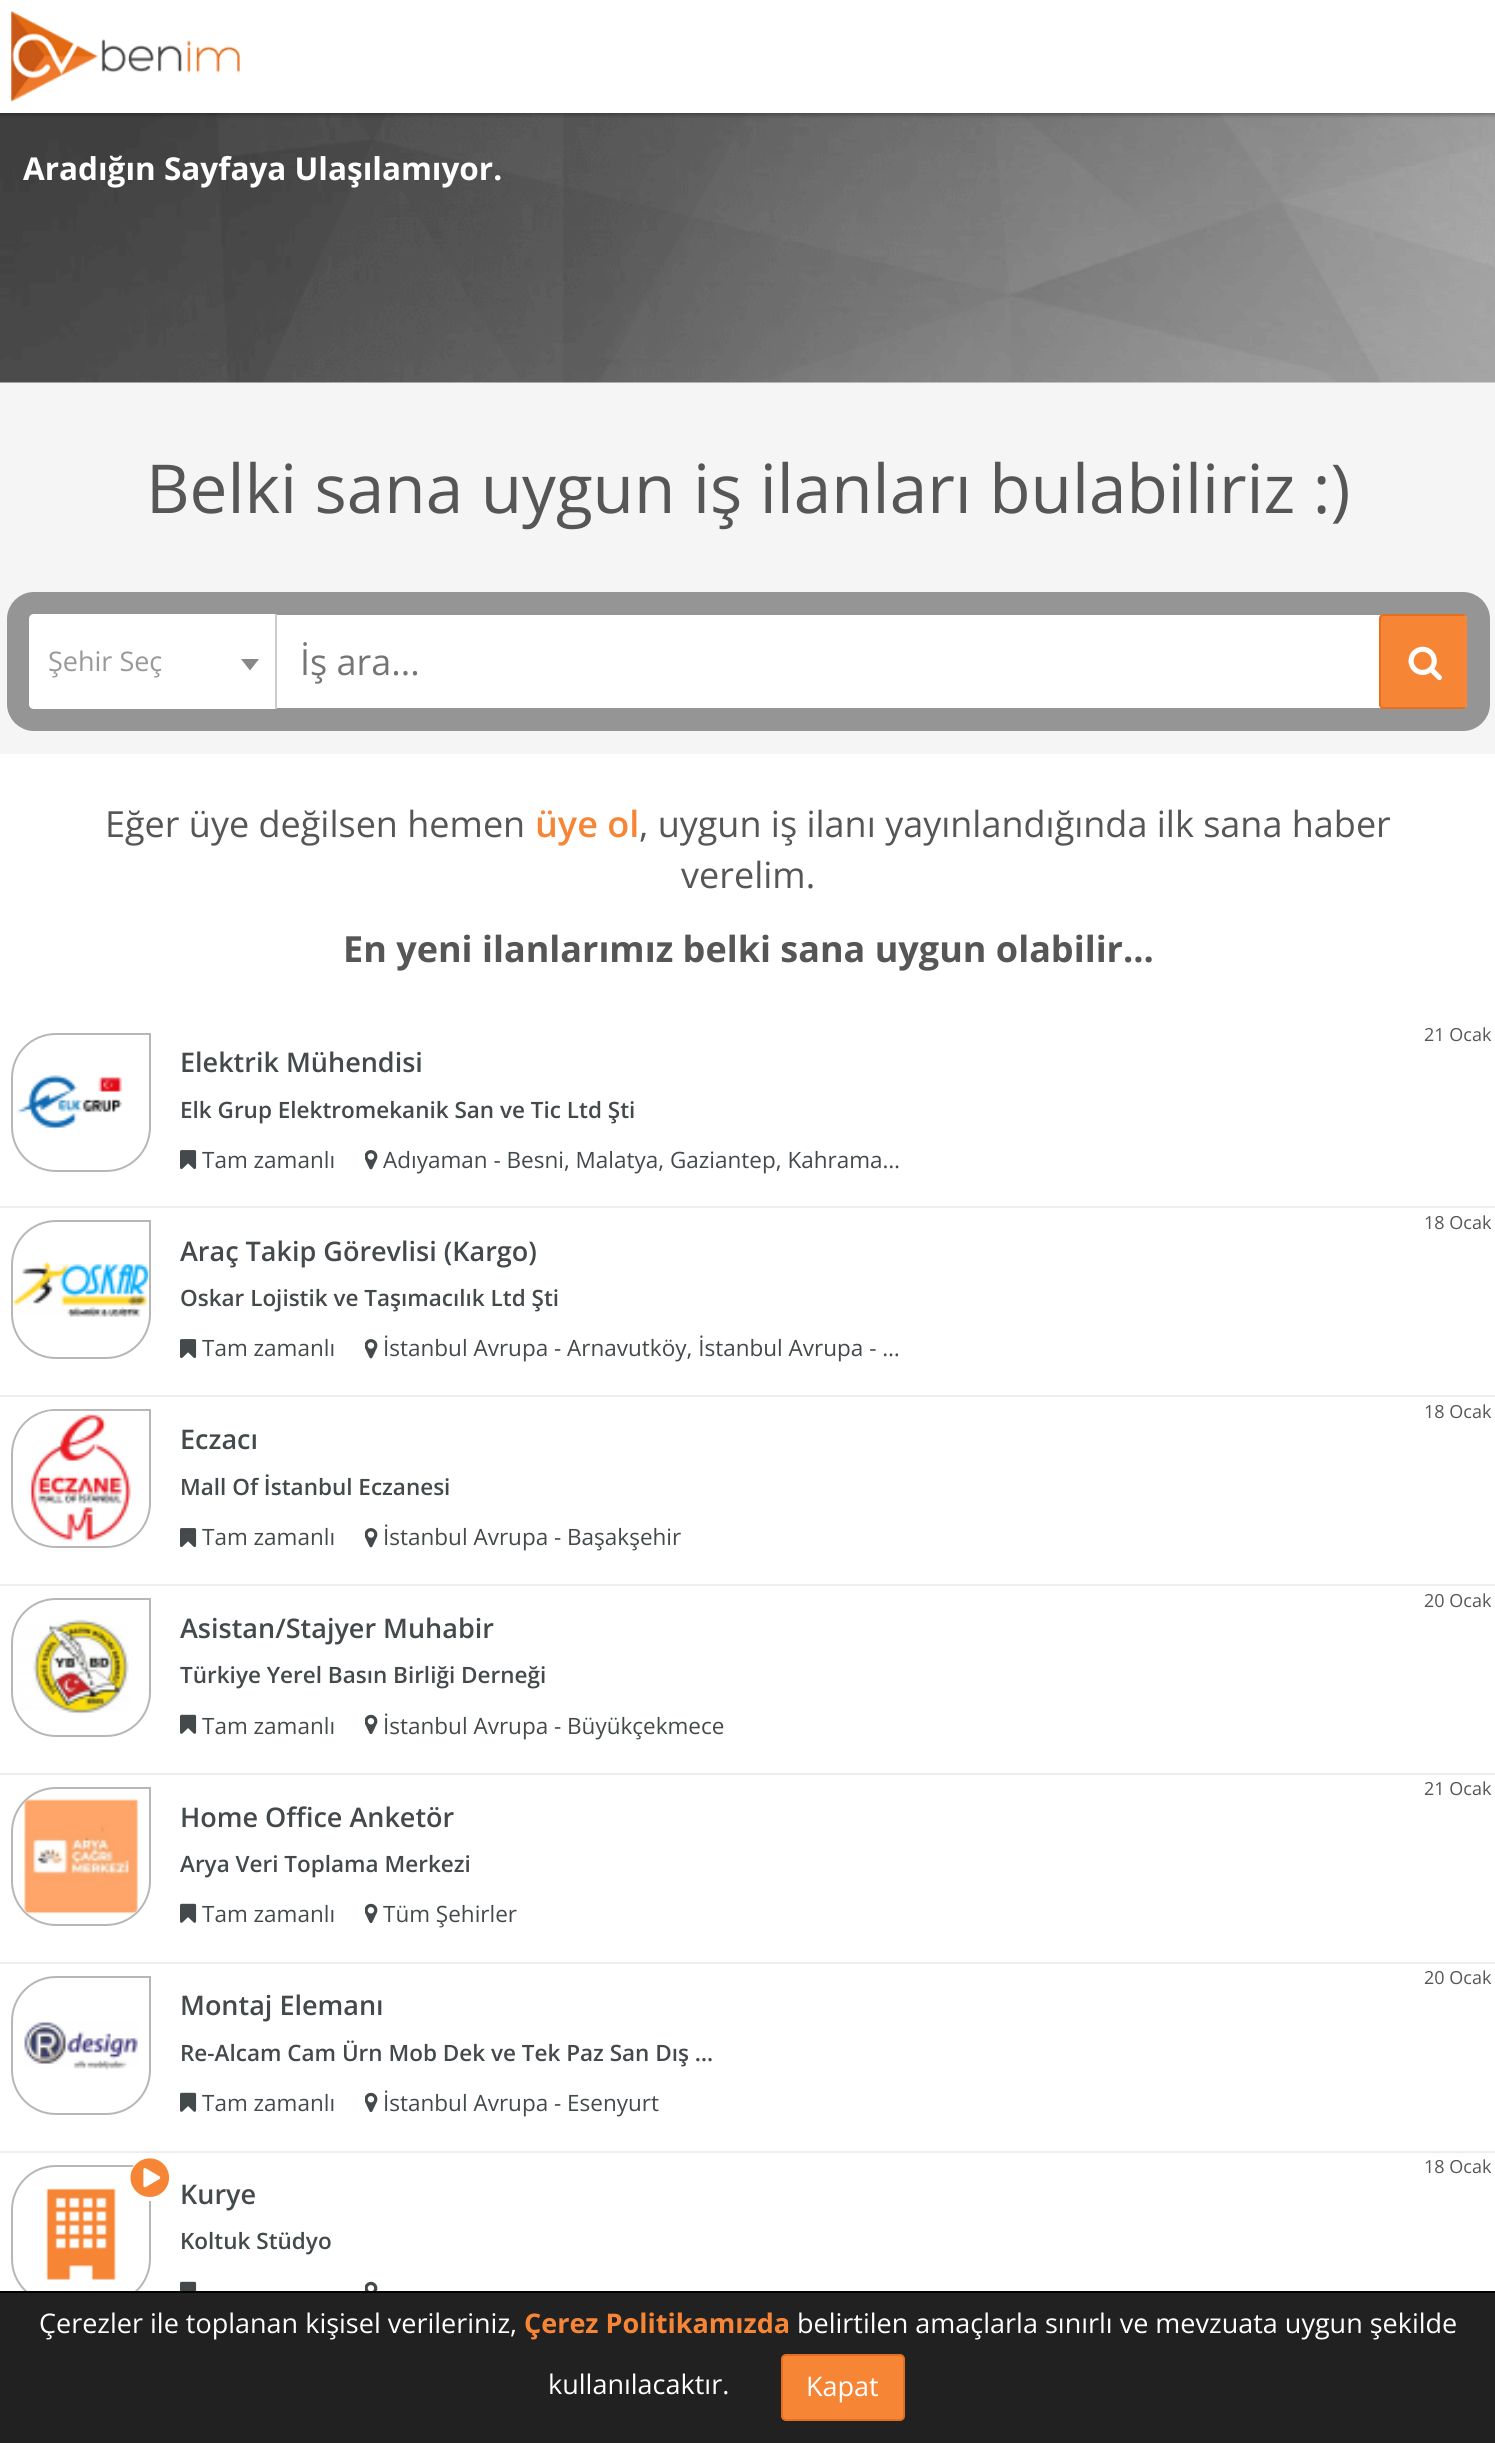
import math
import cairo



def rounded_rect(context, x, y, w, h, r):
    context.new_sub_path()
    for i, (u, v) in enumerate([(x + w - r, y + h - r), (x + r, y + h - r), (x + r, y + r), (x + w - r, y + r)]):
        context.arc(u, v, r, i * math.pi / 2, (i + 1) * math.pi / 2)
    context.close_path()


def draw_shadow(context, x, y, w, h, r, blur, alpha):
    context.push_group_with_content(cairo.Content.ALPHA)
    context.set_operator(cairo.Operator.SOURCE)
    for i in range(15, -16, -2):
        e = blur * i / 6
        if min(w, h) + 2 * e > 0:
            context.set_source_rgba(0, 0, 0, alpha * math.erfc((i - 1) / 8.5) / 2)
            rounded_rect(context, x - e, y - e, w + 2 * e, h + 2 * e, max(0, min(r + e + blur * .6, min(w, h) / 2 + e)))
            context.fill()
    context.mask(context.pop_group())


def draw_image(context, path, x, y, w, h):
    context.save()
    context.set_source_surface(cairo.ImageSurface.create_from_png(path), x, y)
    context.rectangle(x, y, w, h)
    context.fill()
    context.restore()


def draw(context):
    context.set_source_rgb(245 / 255, 245 / 255, 245 / 255)
    context.paint()
    draw_image(context, "images/2.png", 0, 113, 1495, 270)
    context.set_source_rgb(0, 0, 0)
    draw_shadow(context, 0, 2, 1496, 113, 0, 2, 0.3)
    context.set_source_rgb(1, 1, 1)
    context.rectangle(0, 0, 1495, 113)
    context.fill()
    draw_image(context, "images/1.png", 11, 11, 229, 91)
    rounded_rect(context, 29, 614, 1438, 95, 5)
    context.fill()
    rounded_rect(context, 18.5, 603.5, 1460, 116, 15.5)
    context.set_source_rgb(149 / 255, 149 / 255, 149 / 255)
    context.set_line_width(23)
    context.stroke()
    context.set_source_rgb(204 / 255, 204 / 255, 204 / 255)
    context.rectangle(275, 614, 2, 95)
    context.fill()
    context.set_source_rgb(1, 1, 1)
    context.new_path()
    context.move_to(34, 614)
    context.line_to(275, 614)
    context.line_to(275, 709)
    context.line_to(34, 709)
    context.curve_to(31, 709, 29, 707, 29, 704)
    context.line_to(29, 619)
    context.curve_to(29, 616, 31, 614, 34, 614)
    context.close_path()
    context.fill()
    context.set_source_rgb(136 / 255, 136 / 255, 136 / 255)
    context.new_path()
    context.move_to(241, 659)
    context.line_to(259, 659)
    context.line_to(250, 670.5)
    context.close_path()
    context.fill()
    context.set_source_rgb(247 / 255, 133 / 255, 54 / 255)
    rounded_rect(context, 1379, 614, 88, 95, 5)
    context.fill()
    context.set_source_rgb(228 / 255, 112 / 255, 31 / 255)
    context.new_path()
    context.move_to(1384, 614)
    context.curve_to(1381, 614, 1379, 616, 1379, 619)
    context.line_to(1379, 704)
    context.curve_to(1379, 707, 1381, 709, 1384, 709)
    context.line_to(1462, 709)
    context.curve_to(1464, 709, 1465, 708, 1466, 707)
    context.line_to(1384, 707)
    context.curve_to(1382, 707, 1381, 706, 1381, 704)
    context.line_to(1381, 619)
    context.curve_to(1381, 617, 1382, 616, 1384, 616)
    context.line_to(1466, 616)
    context.curve_to(1465, 615, 1464, 614, 1462, 614)
    context.close_path()
    context.fill()
    draw_image(context, "images/3.png", 1408, 646, 34, 35)
    context.set_source_rgb(1, 1, 1)
    context.rectangle(0, 754, 1495, 1537)
    context.fill()
    context.set_source_rgb(238 / 255, 238 / 255, 238 / 255)
    context.rectangle(0, 1206, 1495, 2)
    context.fill()
    context.new_path()
    context.move_to(56, 1034)
    context.line_to(150, 1034)
    context.line_to(150, 1127)
    context.curve_to(150, 1151.5, 130.5, 1171, 106, 1171)
    context.line_to(56, 1171)
    context.curve_to(31.5, 1171, 12, 1151.5, 12, 1127)
    context.line_to(12, 1078)
    context.curve_to(12, 1053.5, 31.5, 1034, 56, 1034)
    context.close_path()
    context.set_source_rgb(183 / 255, 183 / 255, 183 / 255)
    context.set_line_width(2)
    context.stroke()
    draw_image(context, "images/4.png", 16, 1075, 106, 55)
    draw_image(context, "images/5.png", 180, 1150, 17, 20)
    draw_image(context, "images/6.png", 365, 1150, 13, 20)
    context.set_source_rgb(238 / 255, 238 / 255, 238 / 255)
    context.rectangle(0, 1395, 1495, 2)
    context.fill()
    context.new_path()
    context.move_to(56, 1221)
    context.line_to(150, 1221)
    context.line_to(150, 1314)
    context.curve_to(150, 1338.5, 130.5, 1358, 106, 1358)
    context.line_to(56, 1358)
    context.curve_to(31.5, 1358, 12, 1338.5, 12, 1314)
    context.line_to(12, 1265)
    context.curve_to(12, 1240.5, 31.5, 1221, 56, 1221)
    context.close_path()
    context.set_source_rgb(183 / 255, 183 / 255, 183 / 255)
    context.stroke()
    draw_image(context, "images/7.png", 13, 1261, 136, 56)
    draw_image(context, "images/5.png", 180, 1339, 17, 20)
    draw_image(context, "images/6.png", 365, 1339, 13, 20)
    context.set_source_rgb(238 / 255, 238 / 255, 238 / 255)
    context.rectangle(0, 1584, 1495, 2)
    context.fill()
    context.new_path()
    context.move_to(56, 1410)
    context.line_to(150, 1410)
    context.line_to(150, 1503)
    context.curve_to(150, 1527.5, 130.5, 1547, 106, 1547)
    context.line_to(56, 1547)
    context.curve_to(31.5, 1547, 12, 1527.5, 12, 1503)
    context.line_to(12, 1454)
    context.curve_to(12, 1429.5, 31.5, 1410, 56, 1410)
    context.close_path()
    context.set_source_rgb(183 / 255, 183 / 255, 183 / 255)
    context.stroke()
    draw_image(context, "images/8.png", 19, 1410, 122, 136)
    draw_image(context, "images/5.png", 180, 1528, 17, 20)
    draw_image(context, "images/6.png", 365, 1528, 13, 20)
    context.set_source_rgb(238 / 255, 238 / 255, 238 / 255)
    context.rectangle(0, 1773, 1495, 2)
    context.fill()
    context.new_path()
    context.move_to(56, 1599)
    context.line_to(150, 1599)
    context.line_to(150, 1692)
    context.curve_to(150, 1716.5, 130.5, 1736, 106, 1736)
    context.line_to(56, 1736)
    context.curve_to(31.5, 1736, 12, 1716.5, 12, 1692)
    context.line_to(12, 1643)
    context.curve_to(12, 1618.5, 31.5, 1599, 56, 1599)
    context.close_path()
    context.set_source_rgb(183 / 255, 183 / 255, 183 / 255)
    context.stroke()
    draw_image(context, "images/9.png", 16, 1619, 113, 96)
    draw_image(context, "images/10.png", 180, 1714, 17, 20)
    draw_image(context, "images/11.png", 365, 1714, 13, 21)
    context.set_source_rgb(238 / 255, 238 / 255, 238 / 255)
    context.rectangle(0, 1962, 1495, 2)
    context.fill()
    context.new_path()
    context.move_to(56, 1788)
    context.line_to(150, 1788)
    context.line_to(150, 1881)
    context.curve_to(150, 1905.5, 130.5, 1925, 106, 1925)
    context.line_to(56, 1925)
    context.curve_to(31.5, 1925, 12, 1905.5, 12, 1881)
    context.line_to(12, 1832)
    context.curve_to(12, 1807.5, 31.5, 1788, 56, 1788)
    context.close_path()
    context.set_source_rgb(183 / 255, 183 / 255, 183 / 255)
    context.stroke()
    draw_image(context, "images/12.png", 24, 1799, 114, 115)
    draw_image(context, "images/10.png", 180, 1903, 17, 20)
    draw_image(context, "images/11.png", 365, 1903, 13, 21)
    context.set_source_rgb(238 / 255, 238 / 255, 238 / 255)
    context.rectangle(0, 2151, 1495, 2)
    context.fill()
    context.new_path()
    context.move_to(56, 1977)
    context.line_to(150, 1977)
    context.line_to(150, 2070)
    context.curve_to(150, 2094.5, 130.5, 2114, 106, 2114)
    context.line_to(56, 2114)
    context.curve_to(31.5, 2114, 12, 2094.5, 12, 2070)
    context.line_to(12, 2021)
    context.curve_to(12, 1996.5, 31.5, 1977, 56, 1977)
    context.close_path()
    context.set_source_rgb(183 / 255, 183 / 255, 183 / 255)
    context.stroke()
    draw_image(context, "images/13.png", 24, 2022, 114, 49)
    draw_image(context, "images/10.png", 180, 2092, 17, 20)
    draw_image(context, "images/11.png", 365, 2092, 13, 21)
    context.new_path()
    context.move_to(56, 2166)
    context.line_to(150, 2166)
    context.line_to(150, 2259)
    context.curve_to(150, 2283.5, 130.5, 2303, 106, 2303)
    context.line_to(56, 2303)
    context.curve_to(31.5, 2303, 12, 2283.5, 12, 2259)
    context.line_to(12, 2210)
    context.curve_to(12, 2185.5, 31.5, 2166, 56, 2166)
    context.close_path()
    context.stroke()
    context.set_source_rgb(1, 1, 1)
    rounded_rect(context, 131, 2156, 38, 45, 19)
    context.fill()
    draw_image(context, "images/14.png", 130, 2158, 40, 39)
    draw_image(context, "images/15.png", 46, 2188, 70, 92)
    draw_image(context, "images/16.png", 180, 2281, 17, 10)
    draw_image(context, "images/17.png", 365, 2281, 13, 10)
    context.set_source_rgb(33 / 255, 33 / 255, 33 / 255)
    context.rectangle(0, 2293, 1495, 150)
    context.fill()
    context.set_source_rgb(0, 0, 0)
    context.rectangle(0, 2291, 1495, 2)
    context.fill()
    context.set_source_rgb(247 / 255, 133 / 255, 54 / 255)
    rounded_rect(context, 782, 2355, 122, 65, 4)
    context.fill_preserve()
    context.set_source_rgb(228 / 255, 112 / 255, 31 / 255)
    context.stroke()
    context.select_font_face("Open Sans", cairo.FontSlant.NORMAL, cairo.FontWeight.BOLD)
    context.set_font_size(31.5)
    context.set_source_rgb(1, 1, 1)
    context.move_to(23, 180)
    context.show_text("Aradığın Sayfaya Ulaşılamıyor.")
    context.select_font_face("Open Sans")
    context.set_font_size(67.5)
    context.set_source_rgb(86 / 255, 86 / 255, 86 / 255)
    context.move_to(146, 513)
    context.show_text("Belki sana uygun iş ilanları bulabiliriz :)")
    context.set_font_size(27)
    context.set_source_rgb(153 / 255, 153 / 255, 153 / 255)
    context.move_to(48, 671)
    context.show_text("Şehir Seç")
    context.set_font_size(36)
    context.set_source_rgb(117 / 255, 117 / 255, 117 / 255)
    context.move_to(300, 675)
    context.show_text("İş ara...")
    context.set_source_rgb(86 / 255, 86 / 255, 86 / 255)
    context.move_to(105, 837)
    context.show_text("Eğer üye değilsen hemen")
    context.select_font_face("Open Sans SemiBold")
    context.set_source_rgb(247 / 255, 133 / 255, 54 / 255)
    context.move_to(535, 837)
    context.show_text("üye ol")
    context.select_font_face("Open Sans")
    context.set_source_rgb(86 / 255, 86 / 255, 86 / 255)
    context.move_to(639, 837)
    context.show_text(", uygun iş ilanı yayınlandığında ilk sana haber")
    context.move_to(681, 888)
    context.show_text("verelim.")
    context.select_font_face("Open Sans", cairo.FontSlant.NORMAL, cairo.FontWeight.BOLD)
    context.move_to(343, 962)
    context.show_text("En yeni ilanlarımız belki sana uygun olabilir...")
    context.select_font_face("Open Sans SemiBold")
    context.set_font_size(27)
    context.set_source_rgb(68 / 255, 73 / 255, 75 / 255)
    context.move_to(180, 1072)
    context.show_text("Elektrik Mühendisi")
    context.set_font_size(22.5)
    context.move_to(180, 1118)
    context.show_text("Elk Grup Elektromekanik San ve Tic Ltd Şti")
    context.select_font_face("Open Sans")
    context.move_to(202, 1168)
    context.show_text("Tam zamanlı")
    context.move_to(383, 1168)
    context.show_text("Adıyaman - Besni, Malatya, Gaziantep, Kahrama…")
    context.set_font_size(18)
    context.set_source_rgb(86 / 255, 86 / 255, 86 / 255)
    context.move_to(1424, 1041)
    context.show_text("21 Ocak")
    context.select_font_face("Open Sans SemiBold")
    context.set_font_size(27)
    context.set_source_rgb(68 / 255, 73 / 255, 75 / 255)
    context.move_to(180, 1261)
    context.show_text("Araç Takip Görevlisi (Kargo)")
    context.set_font_size(22.5)
    context.move_to(180, 1306)
    context.show_text("Oskar Lojistik ve Taşımacılık Ltd Şti")
    context.select_font_face("Open Sans")
    context.move_to(202, 1356)
    context.show_text("Tam zamanlı")
    context.move_to(383, 1356)
    context.show_text("İstanbul Avrupa - Arnavutköy, İstanbul Avrupa - …")
    context.set_font_size(18)
    context.set_source_rgb(86 / 255, 86 / 255, 86 / 255)
    context.move_to(1424, 1229)
    context.show_text("18 Ocak")
    context.select_font_face("Open Sans SemiBold")
    context.set_font_size(27)
    context.set_source_rgb(68 / 255, 73 / 255, 75 / 255)
    context.move_to(180, 1449)
    context.show_text("Eczacı")
    context.set_font_size(22.5)
    context.move_to(180, 1495)
    context.show_text("Mall Of İstanbul Eczanesi")
    context.select_font_face("Open Sans")
    context.move_to(202, 1545)
    context.show_text("Tam zamanlı")
    context.move_to(383, 1545)
    context.show_text("İstanbul Avrupa - Başakşehir")
    context.set_font_size(18)
    context.set_source_rgb(86 / 255, 86 / 255, 86 / 255)
    context.move_to(1424, 1418)
    context.show_text("18 Ocak")
    context.select_font_face("Open Sans SemiBold")
    context.set_font_size(27)
    context.set_source_rgb(68 / 255, 73 / 255, 75 / 255)
    context.move_to(180, 1638)
    context.show_text("Asistan/Stajyer Muhabir")
    context.set_font_size(22.5)
    context.move_to(180, 1683)
    context.show_text("Türkiye Yerel Basın Birliği Derneği")
    context.select_font_face("Open Sans")
    context.move_to(202, 1734)
    context.show_text("Tam zamanlı")
    context.move_to(383, 1734)
    context.show_text("İstanbul Avrupa - Büyükçekmece")
    context.set_font_size(18)
    context.set_source_rgb(86 / 255, 86 / 255, 86 / 255)
    context.move_to(1424, 1607)
    context.show_text("20 Ocak")
    context.select_font_face("Open Sans SemiBold")
    context.set_font_size(27)
    context.set_source_rgb(68 / 255, 73 / 255, 75 / 255)
    context.move_to(180, 1827)
    context.show_text("Home Office Anketör")
    context.set_font_size(22.5)
    context.move_to(180, 1872)
    context.show_text("Arya Veri Toplama Merkezi")
    context.select_font_face("Open Sans")
    context.move_to(202, 1922)
    context.show_text("Tam zamanlı")
    context.move_to(383, 1922)
    context.show_text("Tüm Şehirler")
    context.set_font_size(18)
    context.set_source_rgb(86 / 255, 86 / 255, 86 / 255)
    context.move_to(1424, 1795)
    context.show_text("21 Ocak")
    context.select_font_face("Open Sans SemiBold")
    context.set_font_size(27)
    context.set_source_rgb(68 / 255, 73 / 255, 75 / 255)
    context.move_to(180, 2015)
    context.show_text("Montaj Elemanı")
    context.set_font_size(22.5)
    context.move_to(180, 2061)
    context.show_text("Re-Alcam Cam Ürn Mob Dek ve Tek Paz San Dış …")
    context.select_font_face("Open Sans")
    context.move_to(202, 2111)
    context.show_text("Tam zamanlı")
    context.move_to(383, 2111)
    context.show_text("İstanbul Avrupa - Esenyurt")
    context.set_font_size(18)
    context.set_source_rgb(86 / 255, 86 / 255, 86 / 255)
    context.move_to(1424, 1984)
    context.show_text("20 Ocak")
    context.move_to(1424, 2173)
    context.show_text("18 Ocak")
    context.select_font_face("Open Sans SemiBold")
    context.set_font_size(27)
    context.set_source_rgb(68 / 255, 73 / 255, 75 / 255)
    context.move_to(180, 2204)
    context.show_text("Kurye")
    context.set_font_size(22.5)
    context.move_to(180, 2249)
    context.show_text("Koltuk Stüdyo")
    context.select_font_face("Open Sans")
    context.set_font_size(27)
    context.set_source_rgb(1, 1, 1)
    context.move_to(39, 2333)
    context.show_text("Çerezler ile toplanan kişisel verileriniz,")
    context.select_font_face("Open Sans", cairo.FontSlant.NORMAL, cairo.FontWeight.BOLD)
    context.set_source_rgb(247 / 255, 133 / 255, 54 / 255)
    context.move_to(524, 2333)
    context.show_text("Çerez Politikamızda")
    context.select_font_face("Open Sans")
    context.set_source_rgb(1, 1, 1)
    context.move_to(797, 2333)
    context.show_text("belirtilen amaçlarla sınırlı ve mevzuata uygun şekilde")
    context.move_to(548, 2394)
    context.show_text("kullanılacaktır.")
    context.move_to(806, 2396)
    context.show_text("Kapat")


surface = cairo.ImageSurface(cairo.Format.RGB24, 1495, 2443)
context = cairo.Context(surface)
options = cairo.FontOptions()
options.set_hint_metrics(cairo.HintMetrics.OFF)
options.set_hint_style(cairo.HintStyle.NONE)
context.set_font_options(options)
context.set_miter_limit(4)
draw(context)
surface.write_to_png("out.png")
